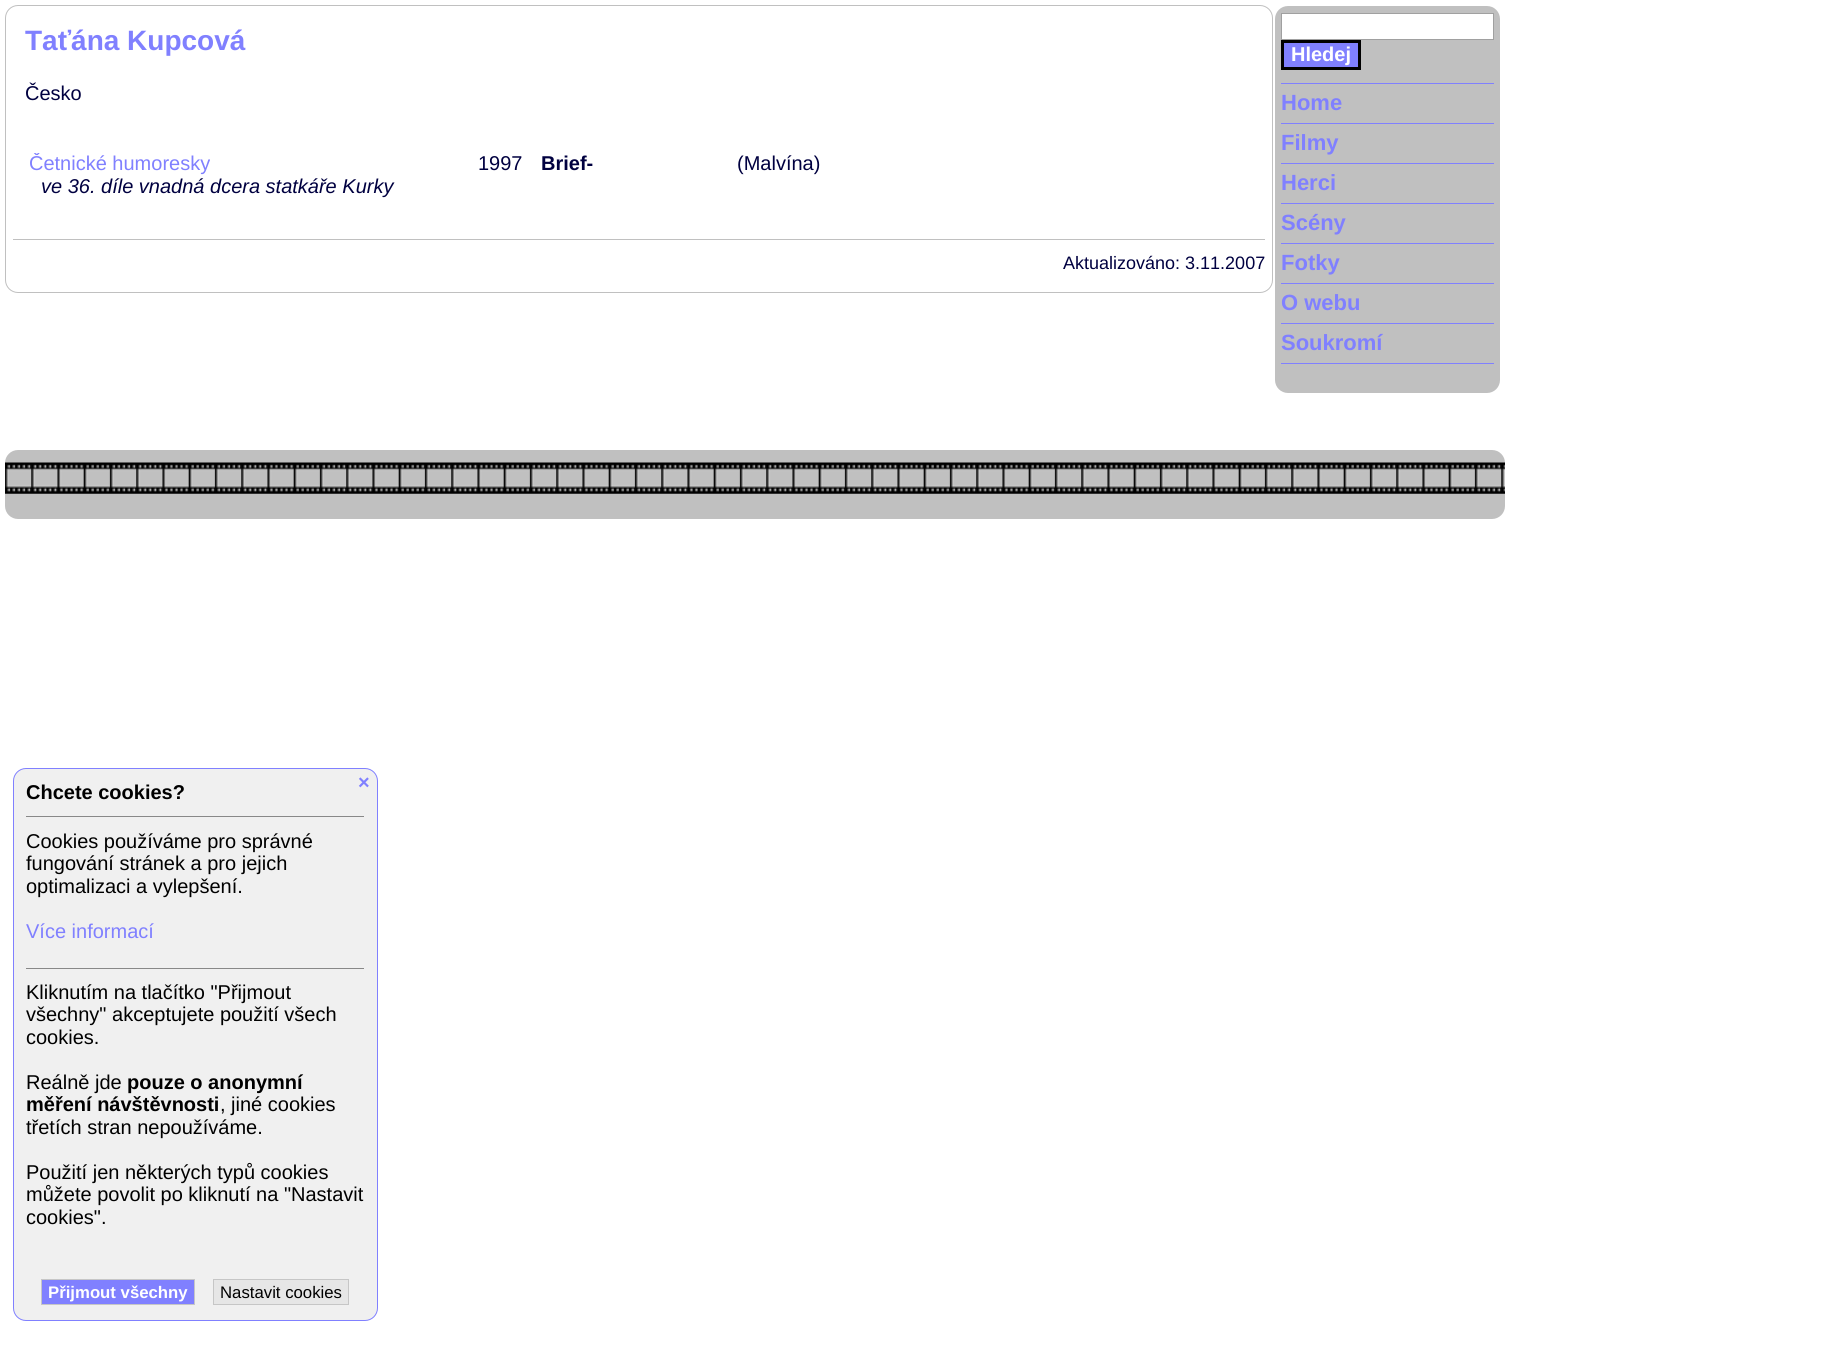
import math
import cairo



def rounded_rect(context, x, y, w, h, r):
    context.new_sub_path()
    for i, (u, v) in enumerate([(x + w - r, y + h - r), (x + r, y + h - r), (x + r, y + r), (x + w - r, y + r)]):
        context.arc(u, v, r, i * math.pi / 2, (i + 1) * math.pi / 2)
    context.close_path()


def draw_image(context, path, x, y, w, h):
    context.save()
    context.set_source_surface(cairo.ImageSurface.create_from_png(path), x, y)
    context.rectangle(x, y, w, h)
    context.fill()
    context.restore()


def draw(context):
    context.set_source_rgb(1, 1, 1)
    context.paint()
    rounded_rect(context, 5.5, 5.5, 1267, 287, 12.5)
    context.set_source_rgb(192 / 255, 192 / 255, 192 / 255)
    context.set_line_width(1)
    context.stroke()
    context.rectangle(13, 239, 1252, 1)
    context.fill()
    rounded_rect(context, 1275, 6, 225, 387, 13)
    context.fill()
    context.set_source_rgb(1, 1, 1)
    context.rectangle(1281.5, 13.5, 212, 26)
    context.fill_preserve()
    context.set_source_rgb(160 / 255, 160 / 255, 160 / 255)
    context.stroke()
    context.set_source_rgb(128 / 255, 128 / 255, 1)
    context.rectangle(1282.5, 41.5, 77, 27)
    context.fill_preserve()
    context.set_source_rgb(0, 0, 0)
    context.set_line_width(3)
    context.stroke()
    context.set_source_rgb(128 / 255, 128 / 255, 1)
    context.rectangle(1281, 83, 213, 1)
    context.fill()
    context.rectangle(1281, 123, 213, 1)
    context.fill()
    context.rectangle(1281, 163, 213, 1)
    context.fill()
    context.rectangle(1281, 203, 213, 1)
    context.fill()
    context.rectangle(1281, 243, 213, 1)
    context.fill()
    context.rectangle(1281, 283, 213, 1)
    context.fill()
    context.rectangle(1281, 323, 213, 1)
    context.fill()
    context.rectangle(1281, 363, 213, 1)
    context.fill()
    context.set_source_rgb(192 / 255, 192 / 255, 192 / 255)
    rounded_rect(context, 5, 450, 1500, 69, 13)
    context.fill()
    draw_image(context, "images/1.png", 5, 462, 1500, 32)
    context.set_source_rgb(240 / 255, 240 / 255, 240 / 255)
    rounded_rect(context, 13.5, 768.5, 364, 552, 12.5)
    context.fill_preserve()
    context.set_source_rgb(128 / 255, 128 / 255, 1)
    context.set_line_width(1)
    context.stroke()
    context.set_source_rgb(136 / 255, 136 / 255, 136 / 255)
    context.rectangle(26, 816, 338, 1)
    context.fill()
    context.rectangle(26, 968, 338, 1)
    context.fill()
    context.set_source_rgb(128 / 255, 128 / 255, 1)
    context.rectangle(41.5, 1279.5, 153, 25)
    context.fill_preserve()
    context.set_source_rgb(198 / 255, 198 / 255, 198 / 255)
    context.stroke()
    context.set_source_rgb(230 / 255, 230 / 255, 230 / 255)
    context.rectangle(213.5, 1279.5, 135, 25)
    context.fill_preserve()
    context.set_source_rgb(198 / 255, 198 / 255, 198 / 255)
    context.stroke()
    context.select_font_face("Liberation Sans", cairo.FontSlant.NORMAL, cairo.FontWeight.BOLD)
    context.set_font_size(28)
    context.set_source_rgb(128 / 255, 128 / 255, 1)
    context.move_to(25, 50)
    context.show_text("Taťána Kupcová")
    context.select_font_face("Liberation Sans")
    context.set_font_size(20)
    context.set_source_rgb(0, 0, 64 / 255)
    context.move_to(25, 100)
    context.show_text("Česko")
    context.save()
    context.rectangle(29, 153, 450, 22)
    context.clip()
    context.set_source_rgb(128 / 255, 128 / 255, 1)
    context.move_to(29, 170)
    context.show_text("Četnické humoresky")
    context.restore()
    context.move_to(478, 170)
    context.show_text("1997")
    context.select_font_face("Liberation Sans", cairo.FontSlant.NORMAL, cairo.FontWeight.BOLD)
    context.move_to(541, 170)
    context.show_text("Brief-")
    context.select_font_face("Liberation Sans")
    context.move_to(737, 170)
    context.show_text("(Malvína)")
    context.select_font_face("Liberation Sans", cairo.FontSlant.ITALIC)
    context.move_to(41, 193)
    context.show_text("ve 36. díle vnadná dcera statkáře Kurky")
    context.select_font_face("Liberation Sans")
    context.set_font_size(18)
    context.move_to(1063, 269)
    context.show_text("Aktualizováno: 3.11.2007")
    context.select_font_face("Liberation Sans", cairo.FontSlant.NORMAL, cairo.FontWeight.BOLD)
    context.set_font_size(20)
    context.set_source_rgb(1, 1, 1)
    context.move_to(1291, 61)
    context.show_text("Hledej")
    context.set_font_size(22)
    context.set_source_rgb(128 / 255, 128 / 255, 1)
    context.move_to(1281, 110)
    context.show_text("Home")
    context.move_to(1281, 150)
    context.show_text("Filmy")
    context.move_to(1281, 190)
    context.show_text("Herci")
    context.move_to(1281, 230)
    context.show_text("Scény")
    context.move_to(1281, 270)
    context.show_text("Fotky")
    context.move_to(1281, 310)
    context.show_text("O webu")
    context.move_to(1281, 350)
    context.show_text("Soukromí")
    context.set_font_size(20)
    context.move_to(358, 789)
    context.show_text("×")
    context.set_source_rgb(0, 0, 0)
    context.move_to(26, 799)
    context.show_text("Chcete cookies?")
    context.select_font_face("Liberation Sans")
    context.move_to(26, 848)
    context.show_text("Cookies používáme pro správné")
    context.move_to(26, 870)
    context.show_text("fungování stránek a pro jejich")
    context.move_to(26, 893)
    context.show_text("optimalizaci a vylepšení.")
    context.set_source_rgb(128 / 255, 128 / 255, 1)
    context.move_to(26, 938)
    context.show_text("Více informací")
    context.set_source_rgb(0, 0, 0)
    context.move_to(26, 999)
    context.show_text("Kliknutím na tlačítko \"Přijmout")
    context.move_to(26, 1021)
    context.show_text("všechny\" akceptujete použití všech")
    context.move_to(26, 1044)
    context.show_text("cookies.")
    context.move_to(26, 1089)
    context.show_text("Reálně jde")
    context.select_font_face("Liberation Sans", cairo.FontSlant.NORMAL, cairo.FontWeight.BOLD)
    context.move_to(127, 1089)
    context.show_text("pouze o anonymní")
    context.move_to(26, 1111)
    context.show_text("měření návštěvnosti")
    context.select_font_face("Liberation Sans")
    context.move_to(220, 1111)
    context.show_text(", jiné cookies")
    context.move_to(26, 1134)
    context.show_text("třetích stran nepoužíváme.")
    context.move_to(26, 1179)
    context.show_text("Použití jen některých typů cookies")
    context.move_to(26, 1201)
    context.show_text("můžete povolit po kliknutí na \"Nastavit")
    context.move_to(26, 1224)
    context.show_text("cookies\".")
    context.select_font_face("Liberation Sans", cairo.FontSlant.NORMAL, cairo.FontWeight.BOLD)
    context.set_font_size(16.75)
    context.set_source_rgb(1, 1, 1)
    context.move_to(48, 1298)
    context.show_text("Přijmout všechny")
    context.select_font_face("Liberation Sans")
    context.set_source_rgb(0, 0, 0)
    context.move_to(220, 1298)
    context.show_text("Nastavit cookies")


surface = cairo.ImageSurface(cairo.Format.RGB24, 1828, 1352)
context = cairo.Context(surface)
options = cairo.FontOptions()
options.set_hint_metrics(cairo.HintMetrics.OFF)
options.set_hint_style(cairo.HintStyle.NONE)
context.set_font_options(options)
context.set_miter_limit(4)
draw(context)
surface.write_to_png("out.png")
